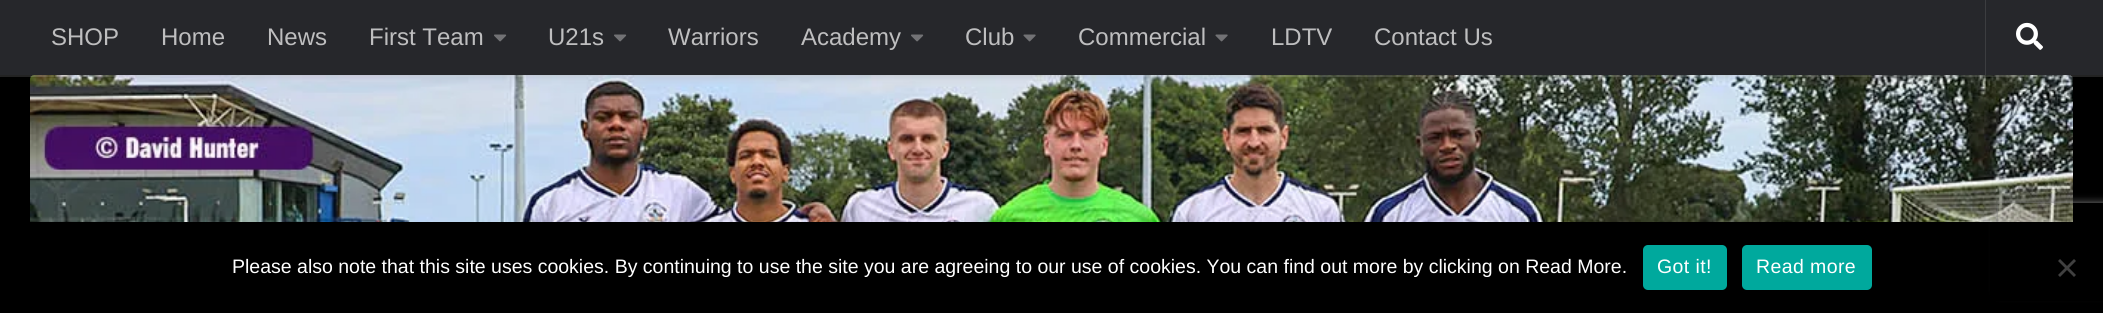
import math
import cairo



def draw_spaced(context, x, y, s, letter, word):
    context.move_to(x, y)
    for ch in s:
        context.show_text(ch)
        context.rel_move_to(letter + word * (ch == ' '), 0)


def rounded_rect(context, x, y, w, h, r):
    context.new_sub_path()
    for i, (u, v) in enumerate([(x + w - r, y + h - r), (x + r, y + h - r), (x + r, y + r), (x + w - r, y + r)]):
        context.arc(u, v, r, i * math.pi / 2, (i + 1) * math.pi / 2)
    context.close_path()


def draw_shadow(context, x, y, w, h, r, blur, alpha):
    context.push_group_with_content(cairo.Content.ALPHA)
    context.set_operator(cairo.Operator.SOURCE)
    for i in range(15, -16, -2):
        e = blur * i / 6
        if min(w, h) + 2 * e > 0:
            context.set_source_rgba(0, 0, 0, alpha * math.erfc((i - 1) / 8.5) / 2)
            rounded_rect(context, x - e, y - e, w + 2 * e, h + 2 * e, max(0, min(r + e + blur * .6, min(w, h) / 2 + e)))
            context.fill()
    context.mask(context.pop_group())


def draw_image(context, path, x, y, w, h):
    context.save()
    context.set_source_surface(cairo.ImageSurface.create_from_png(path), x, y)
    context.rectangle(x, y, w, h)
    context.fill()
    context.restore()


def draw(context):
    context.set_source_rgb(0, 0, 0)
    context.paint()
    draw_image(context, "images/4.png", 30, 75, 2043, 147)
    context.set_source_rgba(1, 1, 1, 0.15)
    context.rectangle(0, 75, 2103, 2)
    context.fill()
    context.set_source_rgb(0, 0, 0)
    draw_shadow(context, 0, 0, 2103, 75, 0, 4, 0.2)
    context.set_source_rgb(38 / 255, 39 / 255, 43 / 255)
    context.rectangle(0, 0, 2103, 75)
    context.fill()
    draw_image(context, "images/1.png", 494, 34, 13, 8)
    draw_image(context, "images/1.png", 614, 34, 13, 8)
    draw_image(context, "images/1.png", 911, 34, 13, 8)
    draw_image(context, "images/2.png", 1023, 34, 13, 8)
    draw_image(context, "images/2.png", 1215, 34, 13, 8)
    context.set_source_rgb(60 / 255, 61 / 255, 64 / 255)
    context.rectangle(1985, 0, 1, 75)
    context.fill()
    draw_image(context, "images/3.png", 2016, 22, 27, 28)
    context.save()
    context.set_fill_rule(cairo.FillRule.EVEN_ODD)
    context.new_path()
    context.move_to(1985, 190)
    context.line_to(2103, 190)
    context.line_to(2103, 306)
    context.line_to(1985, 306)
    context.close_path()
    context.move_to(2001, 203)
    context.line_to(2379, 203)
    context.curve_to(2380.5, 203, 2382, 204.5, 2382, 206)
    context.line_to(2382, 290)
    context.curve_to(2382, 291.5, 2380.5, 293, 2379, 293)
    context.line_to(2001, 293)
    context.curve_to(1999.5, 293, 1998, 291.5, 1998, 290)
    context.line_to(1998, 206)
    context.curve_to(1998, 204.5, 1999.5, 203, 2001, 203)
    context.close_path()
    context.clip()
    context.set_source_rgb(128 / 255, 128 / 255, 128 / 255)
    draw_shadow(context, 1998, 203, 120, 90, 3, 4, 1)
    context.restore()
    context.set_source_rgb(0, 0, 0)
    context.rectangle(1990, 222, 113, 79)
    context.fill()
    context.set_source_rgb(0, 169 / 255, 157 / 255)
    rounded_rect(context, 1643, 245, 84, 45, 5)
    context.fill()
    rounded_rect(context, 1742, 245, 130, 45, 5)
    context.fill()
    context.set_source_rgb(64 / 255, 64 / 255, 64 / 255)
    context.new_path()
    context.move_to(2074, 259)
    context.line_to(2076, 261)
    context.line_to(2060, 277)
    context.line_to(2058, 275)
    context.close_path()
    context.fill()
    context.new_path()
    context.move_to(2058, 261)
    context.line_to(2060, 259)
    context.line_to(2076, 275)
    context.line_to(2074, 277)
    context.close_path()
    context.fill()
    context.select_font_face("Liberation Sans")
    context.set_font_size(24)
    context.set_source_rgb(190 / 255, 190 / 255, 191 / 255)
    context.move_to(51, 45)
    context.show_text("SHOP")
    context.move_to(161, 45)
    context.show_text("Home")
    context.move_to(267, 45)
    context.show_text("News")
    context.move_to(369, 45)
    context.show_text("First Team")
    context.move_to(548, 45)
    context.show_text("U21s")
    context.move_to(668, 45)
    context.show_text("Warriors")
    context.move_to(801, 45)
    context.show_text("Academy")
    context.move_to(965, 45)
    context.show_text("Club")
    context.move_to(1078, 45)
    context.show_text("Commercial")
    context.move_to(1271, 45)
    context.show_text("LDTV")
    context.move_to(1374, 45)
    context.show_text("Contact Us")
    context.set_font_size(19.5)
    context.set_source_rgb(1, 1, 1)
    context.move_to(232, 273)
    context.show_text("Please also note that this site uses cookies. By continuing to use the site you are agreeing to our use of cookies. You can find out more by clicking on Read More.")
    draw_spaced(context, 1657, 273, "Got it!", 0.4, 0)
    draw_spaced(context, 1756, 273, "Read more", 0.4, 0)


surface = cairo.ImageSurface(cairo.Format.RGB24, 2103, 313)
context = cairo.Context(surface)
options = cairo.FontOptions()
options.set_hint_metrics(cairo.HintMetrics.OFF)
options.set_hint_style(cairo.HintStyle.NONE)
context.set_font_options(options)
context.set_miter_limit(4)
draw(context)
surface.write_to_png("out.png")
